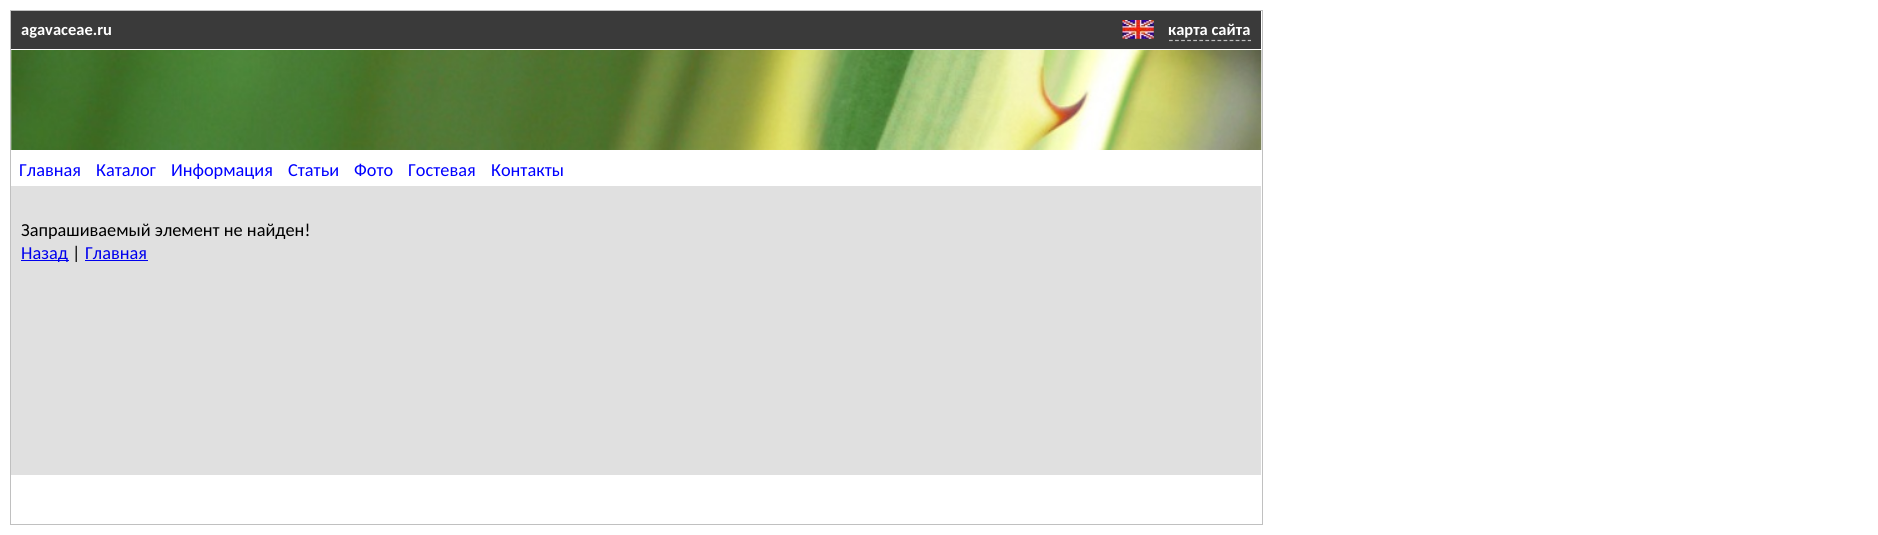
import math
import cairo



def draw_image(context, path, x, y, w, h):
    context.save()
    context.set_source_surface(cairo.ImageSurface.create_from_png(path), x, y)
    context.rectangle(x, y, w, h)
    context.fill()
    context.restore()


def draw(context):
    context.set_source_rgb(1, 1, 1)
    context.paint()
    context.rectangle(10.5, 10.5, 1252, 514)
    context.set_source_rgb(192 / 255, 192 / 255, 192 / 255)
    context.set_line_width(1)
    context.stroke()
    context.set_source_rgb(58 / 255, 58 / 255, 58 / 255)
    context.rectangle(11, 11, 1250, 38)
    context.fill()
    draw_image(context, "images/1.png", 1122, 20, 32, 19)
    context.new_path()
    context.move_to(1169, 40.5)
    context.line_to(1251, 40.5)
    context.set_source_rgb(192 / 255, 192 / 255, 192 / 255)
    context.set_line_width(1.2)
    context.set_dash([3.75, 2.31])
    context.stroke()
    draw_image(context, "images/2.png", 11, 50, 1251, 100)
    context.set_source_rgb(224 / 255, 224 / 255, 224 / 255)
    context.rectangle(11, 186, 1250, 289)
    context.fill()
    context.set_source_rgb(0, 0, 238 / 255)
    context.rectangle(21, 260, 48, 1)
    context.fill()
    context.rectangle(85, 260, 63, 1)
    context.fill()
    context.select_font_face("Carlito", cairo.FontSlant.NORMAL, cairo.FontWeight.BOLD)
    context.set_font_size(16.5)
    context.set_source_rgb(1, 1, 1)
    context.move_to(21, 35)
    context.show_text("agavaceae.ru")
    context.move_to(1168, 35)
    context.show_text("карта сайта")
    context.select_font_face("Carlito")
    context.set_font_size(18.3)
    context.set_source_rgb(0, 0, 1)
    context.move_to(19, 176)
    context.show_text("Главная")
    context.move_to(96, 176)
    context.show_text("Каталог")
    context.move_to(171, 176)
    context.show_text("Информация")
    context.move_to(288, 176)
    context.show_text("Статьи")
    context.move_to(354, 176)
    context.show_text("Фото")
    context.move_to(408, 176)
    context.show_text("Гостевая")
    context.move_to(491, 176)
    context.show_text("Контакты")
    context.set_source_rgb(0, 0, 0)
    context.move_to(21, 236)
    context.show_text("Запрашиваемый элемент не найден!")
    context.set_source_rgb(0, 0, 238 / 255)
    context.move_to(21, 259)
    context.show_text("Назад")
    context.set_source_rgb(0, 0, 0)
    context.move_to(72, 259)
    context.show_text("|")
    context.set_source_rgb(0, 0, 238 / 255)
    context.move_to(85, 259)
    context.show_text("Главная")


surface = cairo.ImageSurface(cairo.Format.RGB24, 1878, 535)
context = cairo.Context(surface)
options = cairo.FontOptions()
options.set_hint_metrics(cairo.HintMetrics.OFF)
options.set_hint_style(cairo.HintStyle.NONE)
context.set_font_options(options)
context.set_miter_limit(4)
draw(context)
surface.write_to_png("out.png")
